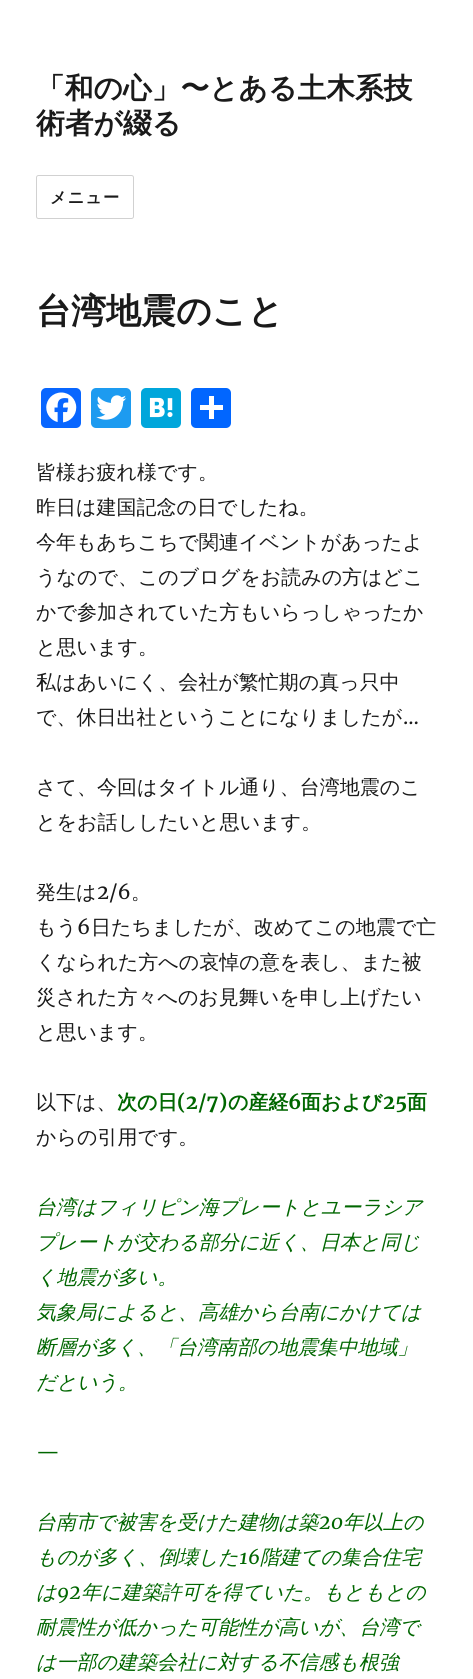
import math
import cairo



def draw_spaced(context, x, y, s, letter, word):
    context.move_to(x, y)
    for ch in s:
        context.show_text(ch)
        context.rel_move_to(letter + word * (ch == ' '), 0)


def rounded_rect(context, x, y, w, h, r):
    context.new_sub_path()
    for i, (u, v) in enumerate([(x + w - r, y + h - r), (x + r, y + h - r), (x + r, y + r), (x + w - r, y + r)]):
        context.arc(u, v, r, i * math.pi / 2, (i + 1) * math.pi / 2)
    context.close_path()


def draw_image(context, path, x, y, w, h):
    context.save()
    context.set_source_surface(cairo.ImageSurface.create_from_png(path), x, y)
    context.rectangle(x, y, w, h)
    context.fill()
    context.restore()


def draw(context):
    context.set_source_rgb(1, 1, 1)
    context.paint()
    rounded_rect(context, 36.5, 175.5, 97, 43, 2)
    context.set_source_rgb(209 / 255, 209 / 255, 209 / 255)
    context.set_line_width(1)
    context.stroke()
    context.set_source_rgb(8 / 255, 102 / 255, 1)
    rounded_rect(context, 41, 388, 40, 40, 5)
    context.fill()
    draw_image(context, "images/1.png", 46, 392, 31, 31)
    context.set_source_rgb(29 / 255, 155 / 255, 240 / 255)
    rounded_rect(context, 91, 388, 40, 40, 5)
    context.fill()
    draw_image(context, "images/2.png", 96, 395, 31, 25)
    context.set_source_rgb(0, 166 / 255, 219 / 255)
    rounded_rect(context, 141, 388, 40, 40, 5)
    context.fill()
    draw_image(context, "images/3.png", 149, 397, 24, 21)
    context.set_source_rgb(1 / 255, 102 / 255, 1)
    rounded_rect(context, 191, 388, 40, 40, 5)
    context.fill()
    context.set_source_rgb(1, 1, 1)
    context.rectangle(209, 396, 5, 23)
    context.fill()
    context.rectangle(200, 405, 23, 5)
    context.fill()
    context.select_font_face("WenQuanYi Zen Hei", cairo.FontSlant.NORMAL, cairo.FontWeight.BOLD)
    context.set_font_size(28.75)
    context.set_source_rgb(26 / 255, 26 / 255, 26 / 255)
    context.move_to(36, 98)
    context.show_text("「和の心」〜とある土木系技")
    context.move_to(36, 133)
    context.show_text("術者が綴る")
    context.set_font_size(16.25)
    draw_spaced(context, 50, 203, "メニュー", 1, 0)
    context.set_font_size(35)
    context.move_to(36, 323)
    context.show_text("台湾地震のこと")
    context.select_font_face("WenQuanYi Zen Hei Medium")
    context.set_font_size(20)
    context.move_to(36, 479)
    context.show_text("皆様お疲れ様です。")
    context.move_to(36, 514)
    context.show_text("昨日は建国記念の日でしたね。")
    context.move_to(36, 549)
    context.show_text("今年もあちこちで関連イベントがあったよ")
    context.move_to(36, 584)
    context.show_text("うなので、このブログをお読みの方はどこ")
    context.move_to(36, 619)
    context.show_text("かで参加されていた方もいらっしゃったか")
    context.move_to(36, 654)
    context.show_text("と思います。")
    context.move_to(36, 689)
    context.show_text("私はあいにく、会社が繁忙期の真っ只中")
    context.move_to(36, 724)
    context.show_text("で、休日出社ということになりましたが")
    context.select_font_face("Merriweather")
    context.move_to(403, 724)
    context.show_text("…")
    context.select_font_face("WenQuanYi Zen Hei Medium")
    context.move_to(36, 794)
    context.show_text("さて、今回はタイトル通り、台湾地震のこ")
    context.move_to(36, 829)
    context.show_text("とをお話ししたいと思います。")
    context.move_to(36, 899)
    context.show_text("発生は")
    context.select_font_face("Merriweather")
    context.move_to(97, 899)
    context.show_text("2/6")
    context.select_font_face("WenQuanYi Zen Hei Medium")
    context.move_to(131, 899)
    context.show_text("。")
    context.move_to(36, 934)
    context.show_text("もう")
    context.select_font_face("Merriweather")
    context.move_to(77, 934)
    context.show_text("6")
    context.select_font_face("WenQuanYi Zen Hei Medium")
    context.move_to(91, 934)
    context.show_text("日たちましたが、改めてこの地震で亡")
    context.move_to(36, 969)
    context.show_text("くなられた方への哀悼の意を表し、また被")
    context.move_to(36, 1004)
    context.show_text("災された方々へのお見舞いを申し上げたい")
    context.move_to(36, 1039)
    context.show_text("と思います。")
    context.move_to(36, 1109)
    context.show_text("以下は、")
    context.select_font_face("WenQuanYi Zen Hei", cairo.FontSlant.NORMAL, cairo.FontWeight.BOLD)
    context.set_source_rgb(0, 102 / 255, 0)
    context.move_to(117, 1109)
    context.show_text("次の日")
    context.select_font_face("Merriweather", cairo.FontSlant.NORMAL, cairo.FontWeight.BOLD)
    context.move_to(177, 1109)
    context.show_text("(2/7)")
    context.select_font_face("WenQuanYi Zen Hei", cairo.FontSlant.NORMAL, cairo.FontWeight.BOLD)
    context.move_to(228, 1109)
    context.show_text("の産経")
    context.select_font_face("Merriweather", cairo.FontSlant.NORMAL, cairo.FontWeight.BOLD)
    context.move_to(288, 1109)
    context.show_text("6")
    context.select_font_face("WenQuanYi Zen Hei", cairo.FontSlant.NORMAL, cairo.FontWeight.BOLD)
    context.move_to(301, 1109)
    context.show_text("面および")
    context.select_font_face("Merriweather", cairo.FontSlant.NORMAL, cairo.FontWeight.BOLD)
    context.move_to(383, 1109)
    context.show_text("25")
    context.select_font_face("WenQuanYi Zen Hei", cairo.FontSlant.NORMAL, cairo.FontWeight.BOLD)
    context.move_to(407, 1109)
    context.show_text("面")
    context.select_font_face("WenQuanYi Zen Hei Medium")
    context.set_source_rgb(26 / 255, 26 / 255, 26 / 255)
    context.move_to(36, 1144)
    context.show_text("からの引用です。")
    context.select_font_face("WenQuanYi Zen Hei Medium", cairo.FontSlant.ITALIC)
    context.set_source_rgb(0, 102 / 255, 0)
    context.move_to(36, 1214)
    context.show_text("台湾はフィリピン海プレートとユーラシア")
    context.move_to(36, 1249)
    context.show_text("プレートが交わる部分に近く、日本と同じ")
    context.move_to(36, 1284)
    context.show_text("く地震が多い。")
    context.move_to(36, 1319)
    context.show_text("気象局によると、高雄から台南にかけては")
    context.move_to(36, 1354)
    context.show_text("断層が多く、「台湾南部の地震集中地域」")
    context.move_to(36, 1389)
    context.show_text("だという。")
    context.select_font_face("Merriweather")
    context.move_to(36, 1459)
    context.show_text("—")
    context.select_font_face("WenQuanYi Zen Hei Medium", cairo.FontSlant.ITALIC)
    context.move_to(36, 1529)
    context.show_text("台南市で被害を受けた建物は築")
    context.select_font_face("Merriweather", cairo.FontSlant.ITALIC)
    context.move_to(319, 1529)
    context.show_text("20")
    context.select_font_face("WenQuanYi Zen Hei Medium", cairo.FontSlant.ITALIC)
    context.move_to(343, 1529)
    context.show_text("年以上の")
    context.move_to(36, 1564)
    context.show_text("ものが多く、倒壊した")
    context.select_font_face("Merriweather", cairo.FontSlant.ITALIC)
    context.move_to(239, 1564)
    context.show_text("16")
    context.select_font_face("WenQuanYi Zen Hei Medium", cairo.FontSlant.ITALIC)
    context.move_to(260, 1564)
    context.show_text("階建ての集合住宅")
    context.move_to(36, 1599)
    context.show_text("は")
    context.select_font_face("Merriweather", cairo.FontSlant.ITALIC)
    context.move_to(57, 1599)
    context.show_text("92")
    context.select_font_face("WenQuanYi Zen Hei Medium", cairo.FontSlant.ITALIC)
    context.move_to(81, 1599)
    context.show_text("年に建築許可を得ていた。もともとの")
    context.move_to(36, 1634)
    context.show_text("耐震性が低かった可能性が高いが、台湾で")
    context.move_to(36, 1669)
    context.show_text("は一部の建築会社に対する不信感も根強")


surface = cairo.ImageSurface(cairo.Format.RGB24, 473, 1679)
context = cairo.Context(surface)
options = cairo.FontOptions()
options.set_hint_metrics(cairo.HintMetrics.OFF)
options.set_hint_style(cairo.HintStyle.NONE)
context.set_font_options(options)
context.set_miter_limit(4)
draw(context)
surface.write_to_png("out.png")
